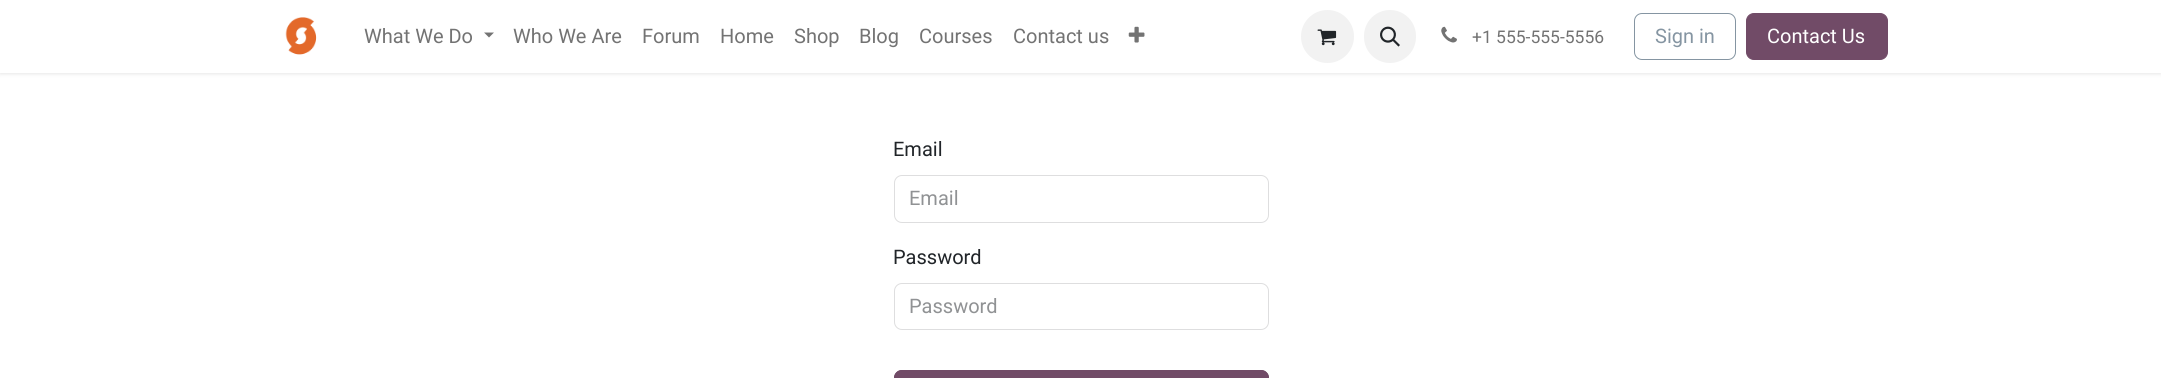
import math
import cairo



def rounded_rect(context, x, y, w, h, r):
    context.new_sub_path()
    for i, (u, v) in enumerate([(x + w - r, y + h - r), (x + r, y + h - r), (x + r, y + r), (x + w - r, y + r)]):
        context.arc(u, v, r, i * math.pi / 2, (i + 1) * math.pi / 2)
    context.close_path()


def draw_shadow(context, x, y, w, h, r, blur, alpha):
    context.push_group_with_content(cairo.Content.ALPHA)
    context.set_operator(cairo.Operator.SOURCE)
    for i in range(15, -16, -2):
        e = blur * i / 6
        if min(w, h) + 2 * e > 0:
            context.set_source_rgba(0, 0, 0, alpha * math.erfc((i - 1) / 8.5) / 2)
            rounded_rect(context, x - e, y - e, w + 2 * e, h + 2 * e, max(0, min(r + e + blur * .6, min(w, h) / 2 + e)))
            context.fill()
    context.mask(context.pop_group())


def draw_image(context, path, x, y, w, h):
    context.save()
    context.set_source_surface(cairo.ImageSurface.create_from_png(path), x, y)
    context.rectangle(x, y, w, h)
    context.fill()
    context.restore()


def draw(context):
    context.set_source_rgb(1, 1, 1)
    context.paint()
    context.set_source_rgb(0, 0, 0)
    draw_shadow(context, 0, 1, 2161, 73, 0, 2, 0.1)
    context.set_source_rgb(1, 1, 1)
    context.rectangle(0, 0, 2161, 73)
    context.fill()
    draw_image(context, "images/1.png", 285, 17, 32, 38)
    context.set_source_rgb(115 / 255, 115 / 255, 115 / 255)
    context.new_path()
    context.move_to(484, 32.5)
    context.line_to(494, 32.5)
    context.line_to(489, 37.5)
    context.close_path()
    context.fill()
    draw_image(context, "images/2.png", 1128, 26, 17, 17)
    context.set_source_rgb(242 / 255, 242 / 255, 242 / 255)
    context.arc(1327.5, 36.5, 26.5, 0, 2 * math.pi)
    context.fill()
    draw_image(context, "images/3.png", 1317, 29, 20, 17)
    rounded_rect(context, 1364, 10, 52, 53, 26)
    context.fill()
    draw_image(context, "images/4.png", 1380, 26, 20, 21)
    draw_image(context, "images/5.png", 1441, 26, 16, 17)
    rounded_rect(context, 1634.5, 13.5, 101, 46, 7.5)
    context.set_source_rgb(133 / 255, 149 / 255, 162 / 255)
    context.set_line_width(1)
    context.stroke()
    context.set_source_rgb(113 / 255, 75 / 255, 103 / 255)
    rounded_rect(context, 1746.5, 13.5, 141, 46, 7.5)
    context.fill_preserve()
    context.stroke()
    rounded_rect(context, 894.5, 175.5, 374, 47, 7.5)
    context.set_source_rgb(222 / 255, 222 / 255, 223 / 255)
    context.stroke()
    rounded_rect(context, 894.5, 283.5, 374, 46, 7.5)
    context.stroke()
    context.set_source_rgb(113 / 255, 75 / 255, 103 / 255)
    context.new_path()
    context.move_to(902, 370)
    context.line_to(1261, 370)
    context.curve_to(1265.5, 370, 1269, 373.5, 1269, 378)
    context.line_to(1269, 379)
    context.line_to(894, 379)
    context.line_to(894, 378)
    context.curve_to(894, 373.5, 897.5, 370, 902, 370)
    context.close_path()
    context.fill()
    rounded_rect(context, 894.5, 370.5, 374, 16, 7.5)
    context.stroke()
    context.select_font_face("Roboto")
    context.set_font_size(20)
    context.set_source_rgb(115 / 255, 115 / 255, 115 / 255)
    context.move_to(364, 43)
    context.show_text("What We Do")
    context.move_to(513, 43)
    context.show_text("Who We Are")
    context.move_to(642, 43)
    context.show_text("Forum")
    context.move_to(720, 43)
    context.show_text("Home")
    context.move_to(794, 43)
    context.show_text("Shop")
    context.move_to(859, 43)
    context.show_text("Blog")
    context.move_to(919, 43)
    context.show_text("Courses")
    context.move_to(1013, 43)
    context.show_text("Contact us")
    context.set_font_size(17.5)
    context.move_to(1472, 43)
    context.show_text("+1 555-555-5556")
    context.set_font_size(20)
    context.set_source_rgb(133 / 255, 149 / 255, 162 / 255)
    context.move_to(1655, 43)
    context.show_text("Sign in")
    context.set_source_rgb(1, 1, 1)
    context.move_to(1767, 43)
    context.show_text("Contact Us")
    context.set_source_rgb(33 / 255, 37 / 255, 41 / 255)
    context.move_to(893, 156)
    context.show_text("Email")
    context.set_source_rgb(144 / 255, 146 / 255, 148 / 255)
    context.move_to(909, 205)
    context.show_text("Email")
    context.set_source_rgb(33 / 255, 37 / 255, 41 / 255)
    context.move_to(893, 264)
    context.show_text("Password")
    context.set_source_rgb(144 / 255, 146 / 255, 148 / 255)
    context.move_to(909, 313)
    context.show_text("Password")


surface = cairo.ImageSurface(cairo.Format.RGB24, 2161, 378)
context = cairo.Context(surface)
options = cairo.FontOptions()
options.set_hint_metrics(cairo.HintMetrics.OFF)
options.set_hint_style(cairo.HintStyle.NONE)
context.set_font_options(options)
context.set_miter_limit(4)
draw(context)
surface.write_to_png("out.png")
